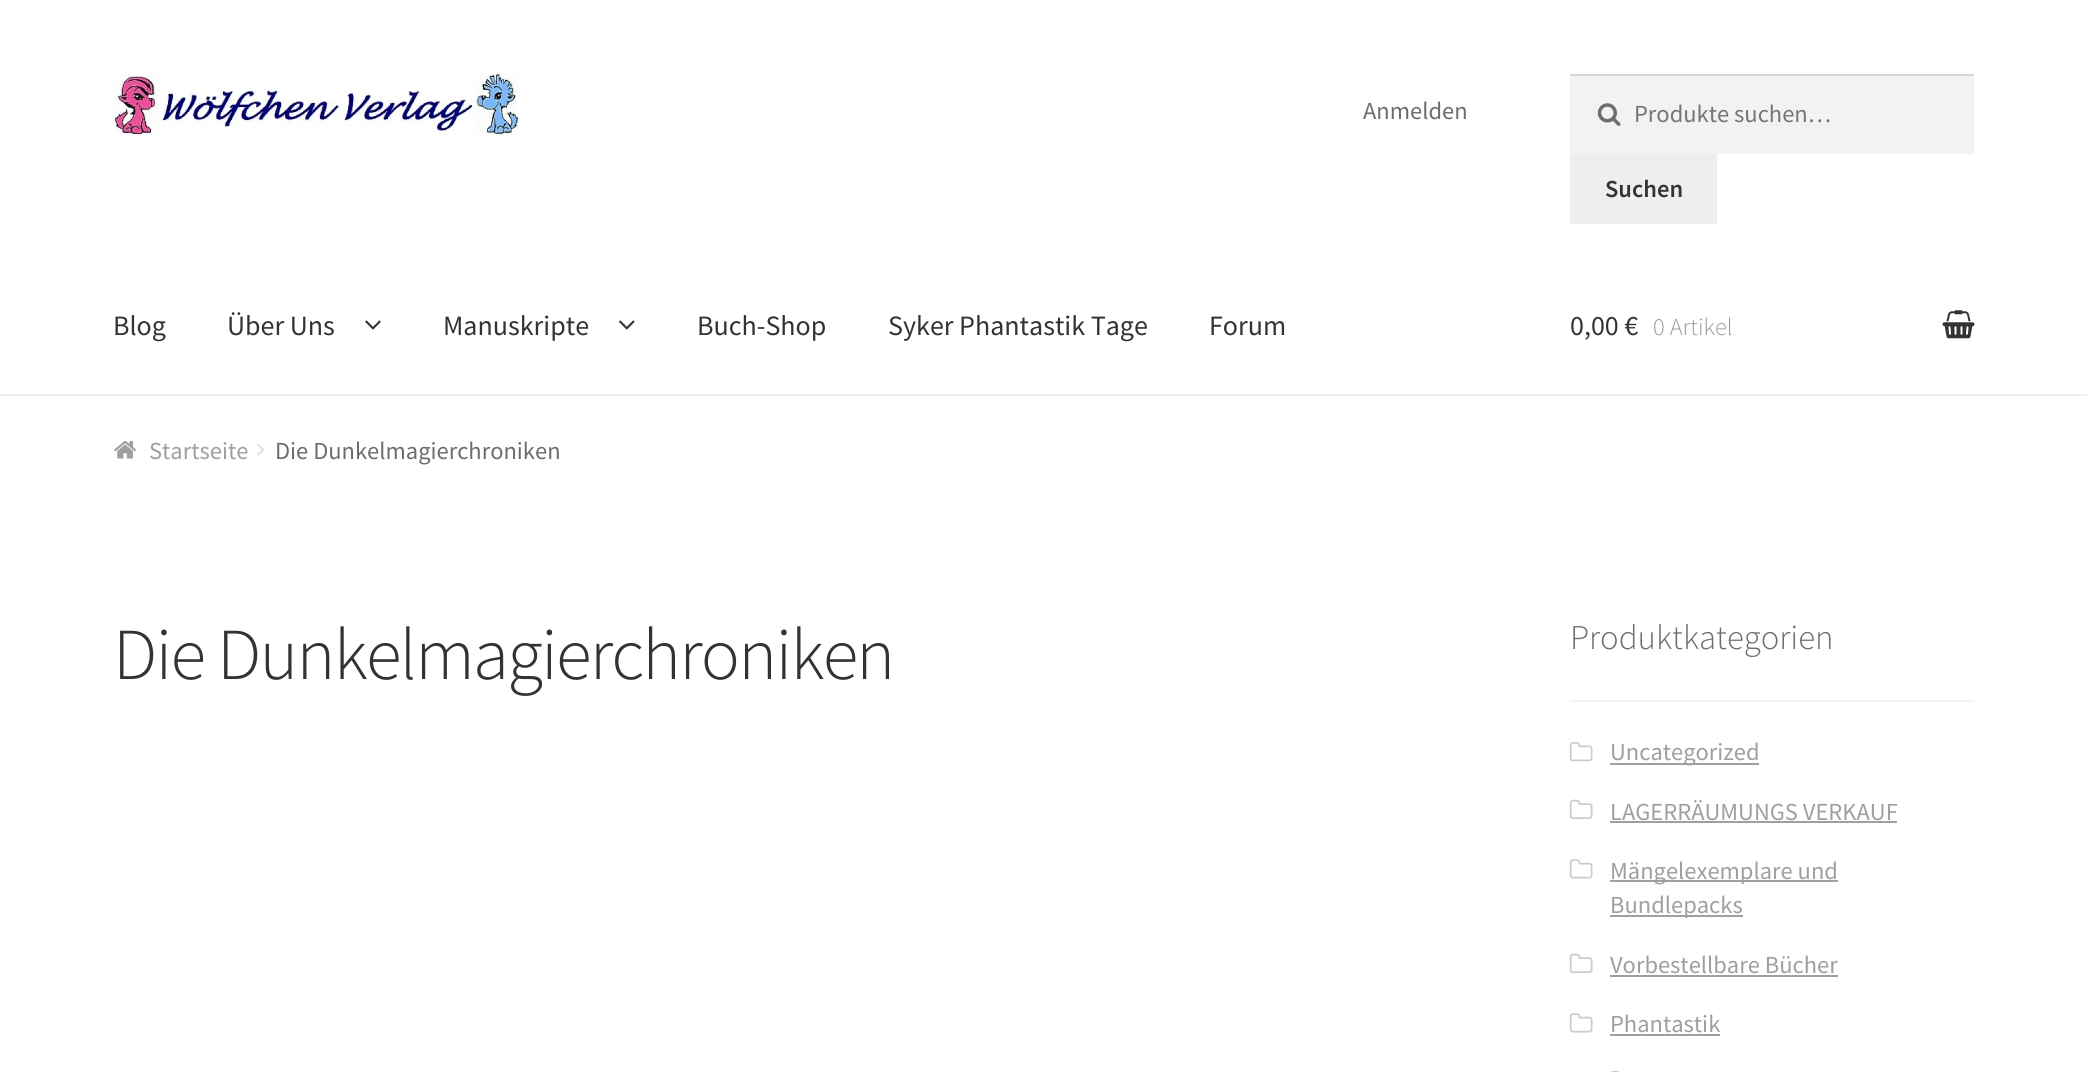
import math
import cairo



def draw_spaced(context, x, y, s, letter, word):
    context.move_to(x, y)
    for ch in s:
        context.show_text(ch)
        context.rel_move_to(letter + word * (ch == ' '), 0)


def draw_image(context, path, x, y, w, h):
    context.save()
    context.set_source_surface(cairo.ImageSurface.create_from_png(path), x, y)
    context.rectangle(x, y, w, h)
    context.fill()
    context.restore()


def draw(context):
    context.set_source_rgb(1, 1, 1)
    context.paint()
    context.set_source_rgb(240 / 255, 240 / 255, 240 / 255)
    context.rectangle(0, 394, 2087, 2)
    context.fill()
    draw_image(context, "images/1.png", 114, 74, 404, 61)
    context.set_source_rgb(242 / 255, 242 / 255, 242 / 255)
    context.rectangle(1570, 76, 404, 78)
    context.fill()
    draw_image(context, "images/2.png", 1597, 103, 24, 23)
    context.set_source_rgb(212 / 255, 212 / 255, 212 / 255)
    context.rectangle(1570, 74, 404, 2)
    context.fill()
    context.set_source_rgb(238 / 255, 238 / 255, 238 / 255)
    context.rectangle(1570, 154, 147, 70)
    context.fill()
    draw_image(context, "images/3.png", 365, 320, 16, 10)
    draw_image(context, "images/4.png", 619, 320, 16, 10)
    draw_image(context, "images/5.png", 1942, 310, 33, 29)
    draw_image(context, "images/6.png", 114, 441, 23, 18)
    draw_image(context, "images/7.png", 257, 443, 7, 13)
    context.set_source_rgb(242 / 255, 242 / 255, 242 / 255)
    context.rectangle(1570, 700, 404, 2)
    context.fill()
    draw_image(context, "images/8.png", 1569, 742, 24, 20)
    context.set_source_rgb(159 / 255, 159 / 255, 159 / 255)
    context.rectangle(1610, 763, 149, 2)
    context.fill()
    draw_image(context, "images/9.png", 1569, 799, 24, 20)
    context.rectangle(1610, 821, 287, 2)
    context.fill()
    draw_image(context, "images/10.png", 1569, 859, 24, 20)
    context.rectangle(1610, 880, 228, 2)
    context.fill()
    context.rectangle(1610, 915, 133, 2)
    context.fill()
    draw_image(context, "images/9.png", 1569, 953, 24, 20)
    context.rectangle(1610, 975, 228, 2)
    context.fill()
    draw_image(context, "images/10.png", 1569, 1013, 24, 20)
    context.rectangle(1610, 1034, 110, 2)
    context.fill()
    draw_image(context, "images/11.png", 1611, 1071, 9, 1)
    context.select_font_face("Source Sans Pro")
    context.set_font_size(24.5)
    context.set_source_rgb(109 / 255, 109 / 255, 109 / 255)
    context.move_to(1363, 119)
    context.show_text("Anmelden")
    context.set_source_rgb(117 / 255, 117 / 255, 117 / 255)
    context.move_to(1634, 122)
    context.show_text("Produkte suchen…")
    context.select_font_face("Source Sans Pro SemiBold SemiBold")
    context.set_source_rgb(51 / 255, 51 / 255, 51 / 255)
    context.move_to(1605, 197)
    context.show_text("Suchen")
    context.select_font_face("Source Sans Pro")
    context.set_font_size(28)
    context.move_to(113, 335)
    context.show_text("Blog")
    context.move_to(227, 335)
    context.show_text("Über Uns")
    context.move_to(443, 335)
    context.show_text("Manuskripte")
    context.move_to(697, 335)
    context.show_text("Buch-Shop")
    context.move_to(888, 335)
    context.show_text("Syker Phantastik Tage")
    context.move_to(1209, 335)
    context.show_text("Forum")
    context.move_to(1570, 335)
    context.show_text("0,00 €")
    context.select_font_face("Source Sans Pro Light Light")
    context.set_font_size(24.5)
    context.set_source_rgb(153 / 255, 153 / 255, 153 / 255)
    context.move_to(1653, 335)
    context.show_text("0 Artikel")
    context.select_font_face("Source Sans Pro")
    context.set_source_rgb(159 / 255, 159 / 255, 159 / 255)
    context.move_to(149, 459)
    context.show_text("Startseite")
    context.set_source_rgb(109 / 255, 109 / 255, 109 / 255)
    context.move_to(275, 459)
    context.show_text("Die Dunkelmagierchroniken")
    context.select_font_face("Source Sans Pro Light Light")
    context.set_font_size(73.25)
    context.set_source_rgb(51 / 255, 51 / 255, 51 / 255)
    draw_spaced(context, 113, 679, "Die Dunkelmagierchroniken", -1.75, 0)
    context.set_font_size(34.75)
    context.set_source_rgb(109 / 255, 109 / 255, 109 / 255)
    context.move_to(1570, 649)
    context.show_text("Produktkategorien")
    context.select_font_face("Source Sans Pro")
    context.set_font_size(24.5)
    context.set_source_rgb(159 / 255, 159 / 255, 159 / 255)
    context.move_to(1610, 760)
    context.show_text("Uncategorized")
    context.move_to(1610, 820)
    context.show_text("LAGERRÄUMUNGS VERKAUF")
    context.move_to(1610, 879)
    context.show_text("Mängelexemplare und")
    context.move_to(1610, 913)
    context.show_text("Bundlepacks")
    context.move_to(1610, 973)
    context.show_text("Vorbestellbare Bücher")
    context.move_to(1610, 1032)
    context.show_text("Phantastik")


surface = cairo.ImageSurface(cairo.Format.RGB24, 2087, 1072)
context = cairo.Context(surface)
options = cairo.FontOptions()
options.set_hint_metrics(cairo.HintMetrics.OFF)
options.set_hint_style(cairo.HintStyle.NONE)
context.set_font_options(options)
context.set_miter_limit(4)
draw(context)
surface.write_to_png("out.png")
